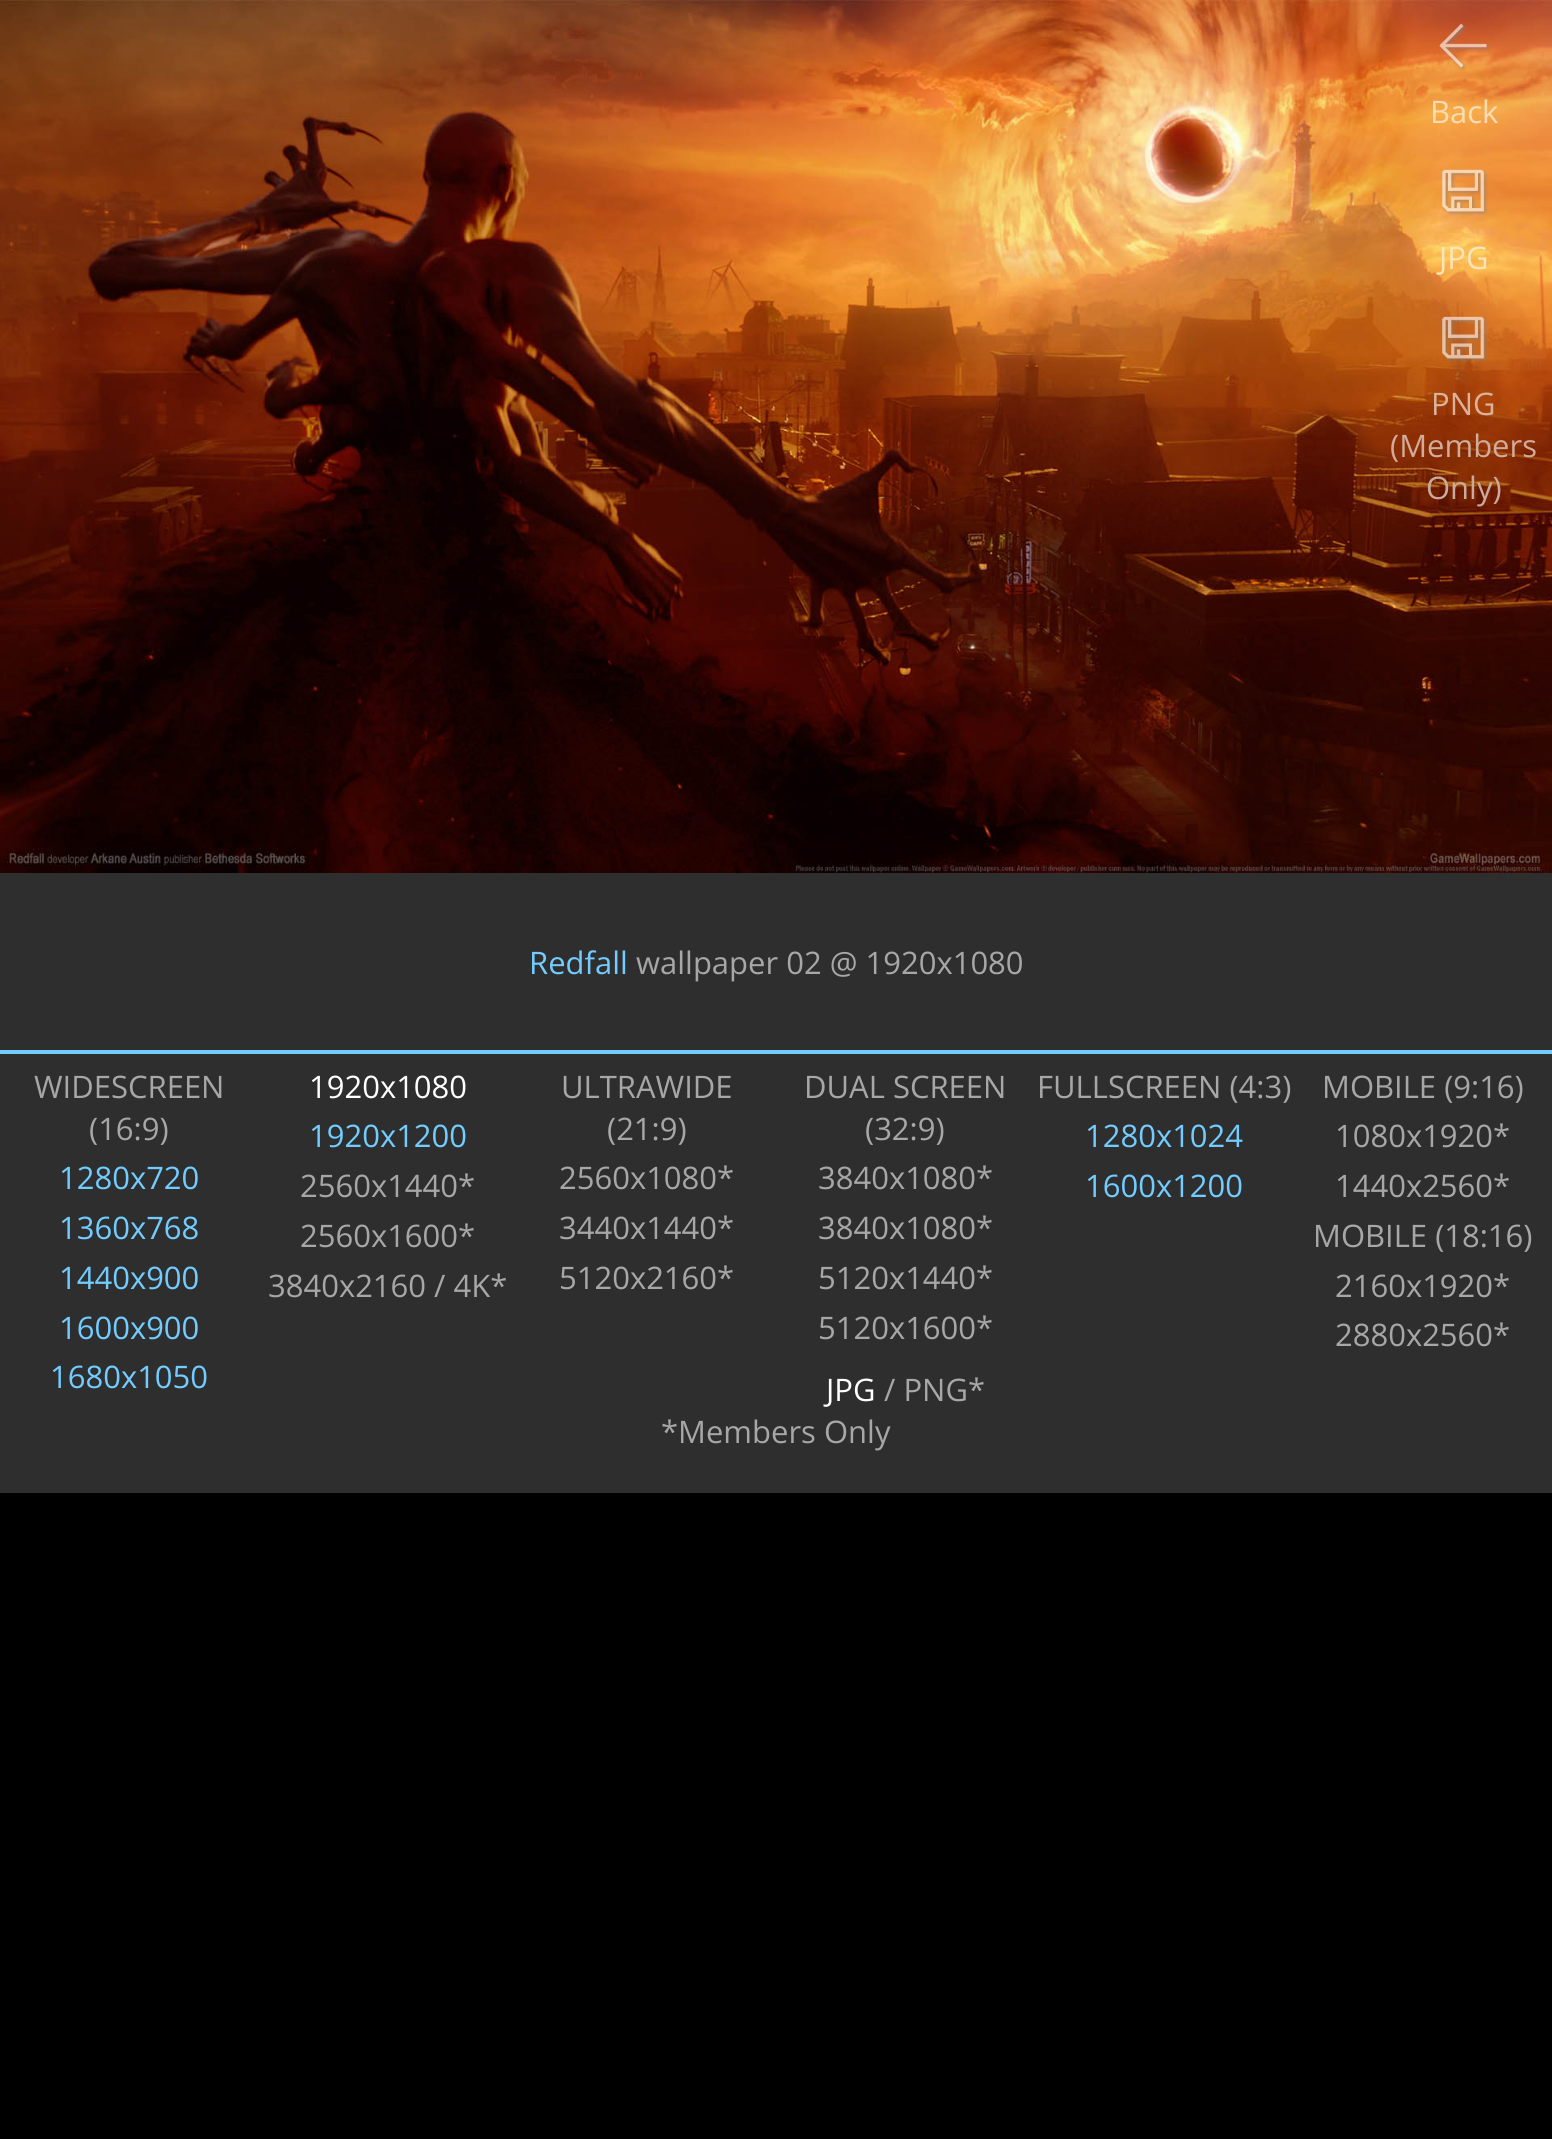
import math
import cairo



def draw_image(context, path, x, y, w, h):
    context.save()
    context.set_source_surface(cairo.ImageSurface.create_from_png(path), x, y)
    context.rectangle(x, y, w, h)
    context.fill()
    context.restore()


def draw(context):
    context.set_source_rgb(0, 0, 0)
    context.paint()
    draw_image(context, "images/1.png", 0, 0, 1552, 873)
    draw_image(context, "images/2.png", 1439, 23, 51, 48)
    draw_image(context, "images/3.png", 1442, 169, 46, 47)
    draw_image(context, "images/4.png", 1442, 316, 46, 47)
    context.set_source_rgb(46 / 255, 46 / 255, 46 / 255)
    context.rectangle(0, 1054, 1552, 439)
    context.fill()
    context.rectangle(0, 873, 1552, 177)
    context.fill()
    context.set_source_rgb(114 / 255, 204 / 255, 1)
    context.rectangle(0, 1050, 1552, 4)
    context.fill()
    context.select_font_face("Open Sans")
    context.set_font_size(31)
    context.set_source_rgb(251 / 255, 220 / 255, 181 / 255)
    context.move_to(1430, 123)
    context.show_text("Back")
    context.set_source_rgb(253 / 255, 229 / 255, 187 / 255)
    context.move_to(1439, 269)
    context.show_text("JPG")
    context.set_source_rgb(218 / 255, 178 / 255, 156 / 255)
    context.move_to(1431, 415)
    context.show_text("PNG")
    context.set_source_rgb(209 / 255, 172 / 255, 155 / 255)
    context.move_to(1390, 457)
    context.show_text("(Members")
    context.set_source_rgb(202 / 255, 170 / 255, 156 / 255)
    context.move_to(1426, 499)
    context.show_text("Only)")
    context.set_source_rgb(114 / 255, 204 / 255, 1)
    context.move_to(529, 974)
    context.show_text("Redfall")
    context.set_source_rgb(167 / 255, 167 / 255, 167 / 255)
    context.move_to(636, 974)
    context.show_text("wallpaper 02 @ 1920x1080")
    context.move_to(34, 1098)
    context.show_text("WIDESCREEN")
    context.move_to(89, 1140)
    context.show_text("(16:9)")
    context.set_source_rgb(114 / 255, 204 / 255, 1)
    context.move_to(59, 1189)
    context.show_text("1280x720")
    context.move_to(59, 1239)
    context.show_text("1360x768")
    context.move_to(59, 1289)
    context.show_text("1440x900")
    context.move_to(59, 1339)
    context.show_text("1600x900")
    context.move_to(50, 1388)
    context.show_text("1680x1050")
    context.set_source_rgb(1, 1, 1)
    context.move_to(309, 1098)
    context.show_text("1920x1080")
    context.set_source_rgb(114 / 255, 204 / 255, 1)
    context.move_to(309, 1147)
    context.show_text("1920x1200")
    context.set_source_rgb(167 / 255, 167 / 255, 167 / 255)
    context.move_to(300, 1197)
    context.show_text("2560x1440*")
    context.move_to(300, 1247)
    context.show_text("2560x1600*")
    context.move_to(268, 1297)
    context.show_text("3840x2160 / 4K*")
    context.move_to(561, 1098)
    context.show_text("ULTRAWIDE")
    context.move_to(607, 1140)
    context.show_text("(21:9)")
    context.move_to(559, 1189)
    context.show_text("2560x1080*")
    context.move_to(559, 1239)
    context.show_text("3440x1440*")
    context.move_to(559, 1289)
    context.show_text("5120x2160*")
    context.move_to(804, 1098)
    context.show_text("DUAL SCREEN")
    context.move_to(865, 1140)
    context.show_text("(32:9)")
    context.move_to(818, 1189)
    context.show_text("3840x1080*")
    context.move_to(818, 1239)
    context.show_text("3840x1080*")
    context.move_to(818, 1289)
    context.show_text("5120x1440*")
    context.move_to(818, 1339)
    context.show_text("5120x1600*")
    context.move_to(1037, 1098)
    context.show_text("FULLSCREEN (4:3)")
    context.set_source_rgb(114 / 255, 204 / 255, 1)
    context.move_to(1085, 1147)
    context.show_text("1280x1024")
    context.move_to(1085, 1197)
    context.show_text("1600x1200")
    context.set_source_rgb(167 / 255, 167 / 255, 167 / 255)
    context.move_to(1322, 1098)
    context.show_text("MOBILE (9:16)")
    context.move_to(1335, 1147)
    context.show_text("1080x1920*")
    context.move_to(1335, 1197)
    context.show_text("1440x2560*")
    context.move_to(1313, 1247)
    context.show_text("MOBILE (18:16)")
    context.move_to(1335, 1297)
    context.show_text("2160x1920*")
    context.move_to(1335, 1346)
    context.show_text("2880x2560*")
    context.set_source_rgb(1, 1, 1)
    context.move_to(826, 1401)
    context.show_text("JPG")
    context.set_source_rgb(167 / 255, 167 / 255, 167 / 255)
    context.move_to(884, 1401)
    context.show_text("/ PNG*")
    context.move_to(661, 1443)
    context.show_text("*Members Only")


surface = cairo.ImageSurface(cairo.Format.RGB24, 1552, 2139)
context = cairo.Context(surface)
options = cairo.FontOptions()
options.set_hint_metrics(cairo.HintMetrics.OFF)
options.set_hint_style(cairo.HintStyle.NONE)
context.set_font_options(options)
context.set_miter_limit(4)
draw(context)
surface.write_to_png("out.png")
